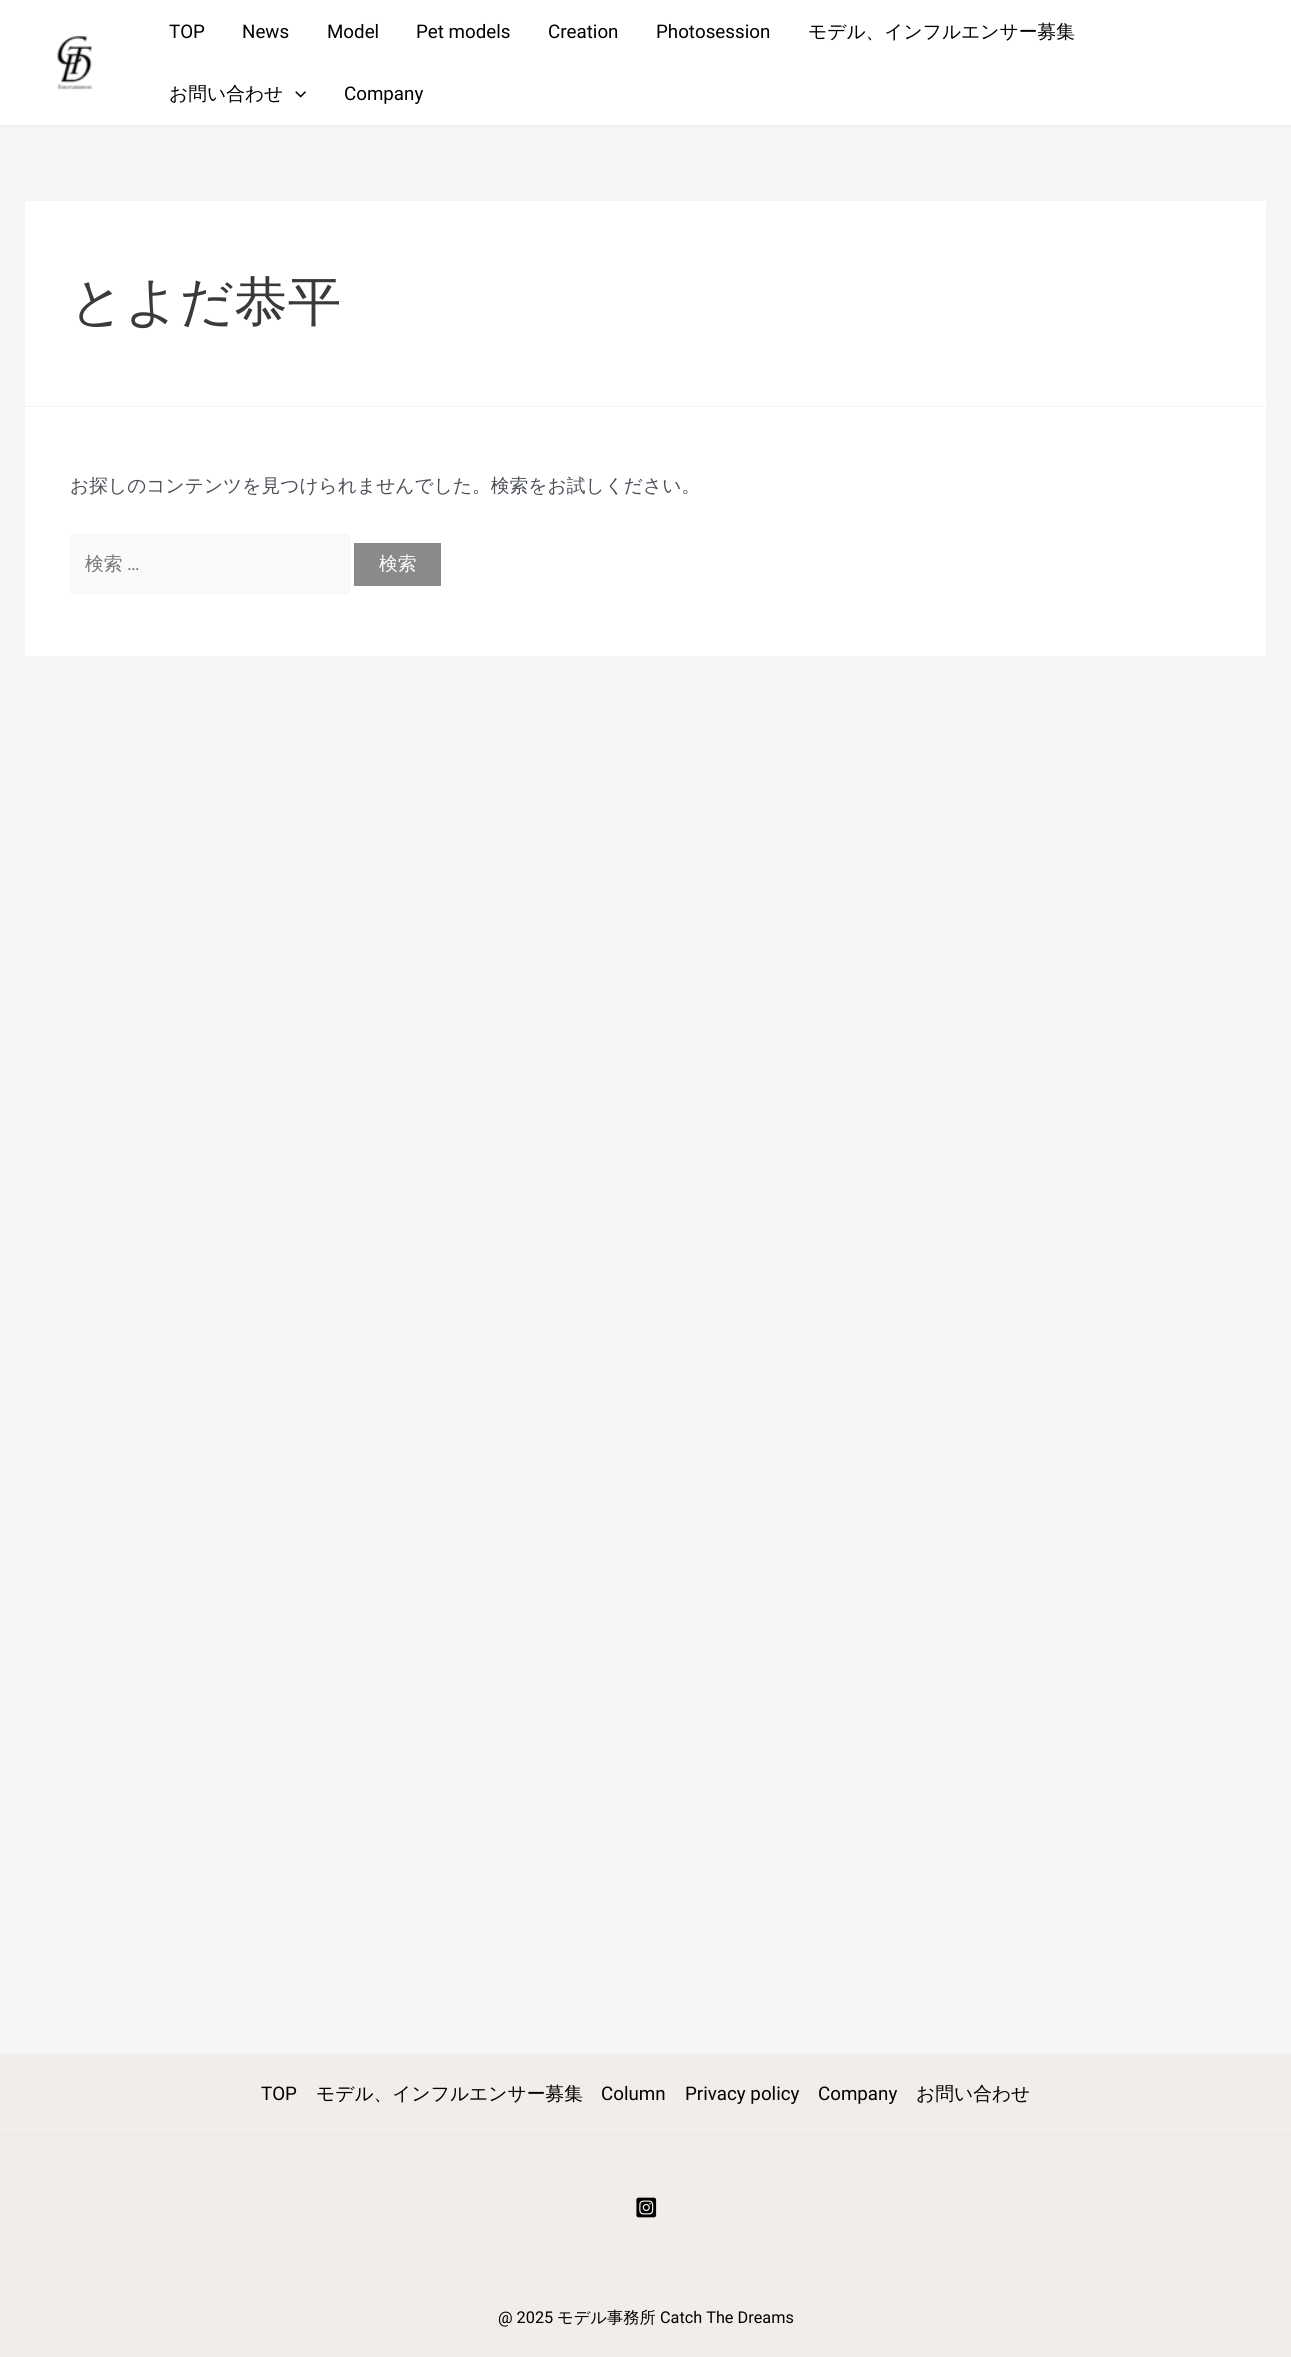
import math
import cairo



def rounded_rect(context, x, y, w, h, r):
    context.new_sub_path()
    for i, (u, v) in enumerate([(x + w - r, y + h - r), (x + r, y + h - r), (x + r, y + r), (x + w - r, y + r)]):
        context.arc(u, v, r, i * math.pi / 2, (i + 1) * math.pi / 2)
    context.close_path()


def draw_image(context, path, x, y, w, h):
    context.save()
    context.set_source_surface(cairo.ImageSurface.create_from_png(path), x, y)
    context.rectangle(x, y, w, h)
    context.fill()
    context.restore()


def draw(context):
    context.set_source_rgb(245 / 255, 245 / 255, 245 / 255)
    context.paint()
    context.set_source_rgb(1, 1, 1)
    context.rectangle(0, 0, 1291, 125)
    context.fill()
    context.set_source_rgb(234 / 255, 234 / 255, 234 / 255)
    context.rectangle(0, 125, 1291, 1)
    context.fill()
    draw_image(context, "images/1.png", 57, 35, 36, 55)
    draw_image(context, "images/2.png", 295, 91, 11, 7)
    context.set_source_rgb(1, 1, 1)
    context.rectangle(25, 201, 1241, 455)
    context.fill()
    context.set_source_rgb(242 / 255, 245 / 255, 247 / 255)
    context.rectangle(25, 406, 1241, 1)
    context.fill()
    context.set_source_rgb(250 / 255, 250 / 255, 250 / 255)
    rounded_rect(context, 70.5, 534.5, 279, 59, 2)
    context.fill_preserve()
    context.set_source_rgb(242 / 255, 245 / 255, 247 / 255)
    context.set_line_width(1)
    context.stroke()
    context.set_source_rgb(139 / 255, 138 / 255, 137 / 255)
    context.rectangle(354, 543, 87, 43)
    context.fill()
    context.set_source_rgb(242 / 255, 237 / 255, 232 / 255)
    context.rectangle(0, 2054, 1291, 303)
    context.fill()
    context.set_source_rgb(230 / 255, 230 / 255, 230 / 255)
    context.rectangle(0, 2134, 1291, 1)
    context.fill()
    draw_image(context, "images/3.png", 636, 2197, 21, 21)
    context.select_font_face("Roboto")
    context.set_font_size(18.75)
    context.set_source_rgb(0, 0, 0)
    context.move_to(169, 38)
    context.show_text("TOP")
    context.move_to(242, 38)
    context.show_text("News")
    context.move_to(327, 38)
    context.show_text("Model")
    context.move_to(416, 38)
    context.show_text("Pet models")
    context.move_to(548, 38)
    context.show_text("Creation")
    context.move_to(656, 38)
    context.show_text("Photosession")
    context.select_font_face("WenQuanYi Zen Hei Medium")
    context.move_to(808, 38)
    context.show_text("モデル、インフルエンサー募集")
    context.move_to(169, 100)
    context.show_text("お問い合わせ")
    context.select_font_face("Roboto")
    context.move_to(344, 100)
    context.show_text("Company")
    context.select_font_face("WenQuanYi Zen Hei Medium")
    context.set_font_size(53.5)
    context.set_source_rgb(58 / 255, 58 / 255, 58 / 255)
    context.move_to(70, 320)
    context.show_text("とよだ恭平")
    context.set_font_size(18.75)
    context.set_source_rgb(75 / 255, 79 / 255, 88 / 255)
    context.move_to(70, 492)
    context.show_text("お探しのコンテンツを見つけられませんでした。検索をお試しください。")
    context.set_source_rgb(117 / 255, 117 / 255, 117 / 255)
    context.move_to(85, 570)
    context.show_text("検索")
    context.select_font_face("Roboto")
    context.move_to(127, 570)
    context.show_text("…")
    context.select_font_face("WenQuanYi Zen Hei Medium")
    context.set_source_rgb(1, 1, 1)
    context.move_to(379, 570)
    context.show_text("検索")
    context.select_font_face("Roboto")
    context.set_source_rgb(0, 0, 0)
    context.move_to(261, 2100)
    context.show_text("TOP")
    context.select_font_face("WenQuanYi Zen Hei Medium")
    context.move_to(316, 2100)
    context.show_text("モデル、インフルエンサー募集")
    context.select_font_face("Roboto")
    context.move_to(601, 2100)
    context.show_text("Column")
    context.move_to(685, 2100)
    context.show_text("Privacy policy")
    context.move_to(818, 2100)
    context.show_text("Company")
    context.select_font_face("WenQuanYi Zen Hei Medium")
    context.move_to(916, 2100)
    context.show_text("お問い合わせ")
    context.select_font_face("Roboto")
    context.set_font_size(16.25)
    context.move_to(498, 2323)
    context.show_text("@ 2025")
    context.select_font_face("WenQuanYi Zen Hei Medium")
    context.move_to(557, 2323)
    context.show_text("モデル事務所")
    context.select_font_face("Roboto")
    context.move_to(660, 2323)
    context.show_text("Catch The Dreams")


surface = cairo.ImageSurface(cairo.Format.RGB24, 1291, 2357)
context = cairo.Context(surface)
options = cairo.FontOptions()
options.set_hint_metrics(cairo.HintMetrics.OFF)
options.set_hint_style(cairo.HintStyle.NONE)
context.set_font_options(options)
context.set_miter_limit(4)
draw(context)
surface.write_to_png("out.png")
